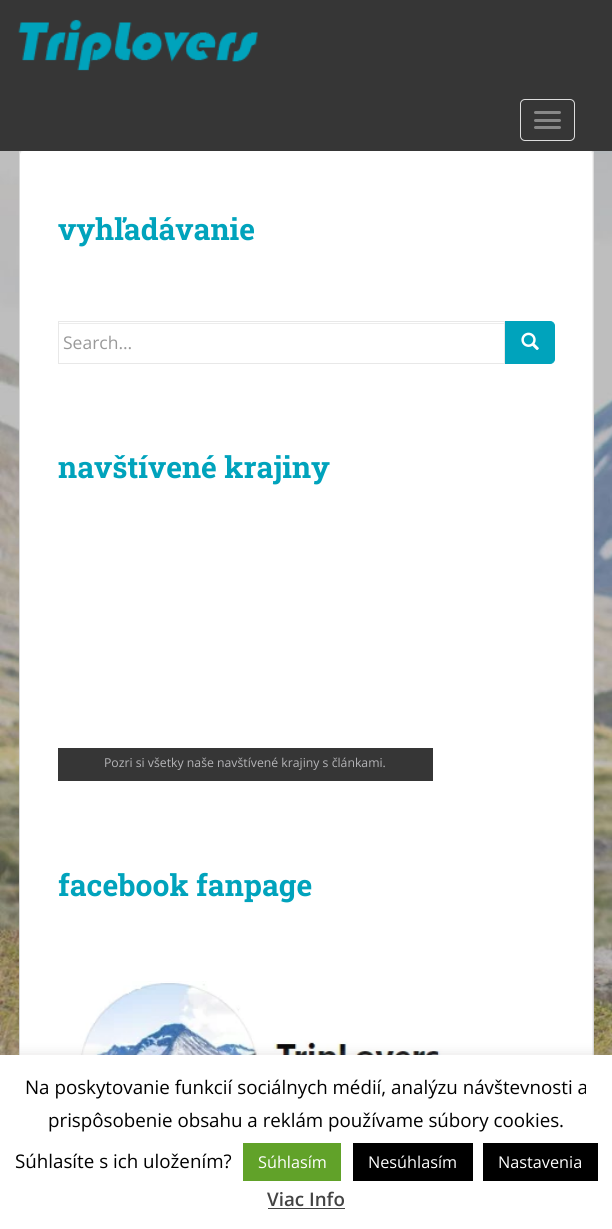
import math
import cairo



def rounded_rect(context, x, y, w, h, r):
    context.new_sub_path()
    for i, (u, v) in enumerate([(x + w - r, y + h - r), (x + r, y + h - r), (x + r, y + r), (x + w - r, y + r)]):
        context.arc(u, v, r, i * math.pi / 2, (i + 1) * math.pi / 2)
    context.close_path()


def draw_shadow(context, x, y, w, h, r, blur, alpha):
    context.push_group_with_content(cairo.Content.ALPHA)
    context.set_operator(cairo.Operator.SOURCE)
    for i in range(15, -16, -2):
        e = blur * i / 6
        if min(w, h) + 2 * e > 0:
            context.set_source_rgba(0, 0, 0, alpha * math.erfc((i - 1) / 8.5) / 2)
            rounded_rect(context, x - e, y - e, w + 2 * e, h + 2 * e, max(0, min(r + e + blur * .6, min(w, h) / 2 + e)))
            context.fill()
    context.mask(context.pop_group())


def draw_image(context, path, x, y, w, h):
    context.save()
    context.set_source_surface(cairo.ImageSurface.create_from_png(path), x, y)
    context.rectangle(x, y, w, h)
    context.fill()
    context.restore()


def draw(context):
    context.set_source_rgb(1, 1, 1)
    context.paint()
    draw_image(context, "images/1.png", 0, 151, 612, 904)
    context.set_source_rgb(1, 1, 1)
    rounded_rect(context, 19, 149, 575, 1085, 5)
    context.fill()
    context.set_source_rgb(242 / 255, 242 / 255, 242 / 255)
    context.new_path()
    context.move_to(24, 151)
    context.line_to(589, 151)
    context.curve_to(591, 151, 592, 153, 592, 155)
    context.line_to(592, 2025)
    context.curve_to(593, 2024, 593, 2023, 593, 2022)
    context.line_to(593, 154)
    context.curve_to(593, 152, 591, 150, 589, 150)
    context.line_to(24, 150)
    context.curve_to(22, 150, 20, 152, 20, 154)
    context.line_to(20, 155)
    context.curve_to(20, 153, 22, 151, 24, 151)
    context.close_path()
    context.fill()
    rounded_rect(context, 19.5, 149.5, 574, 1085, 4.5)
    context.set_source_rgb(218 / 255, 218 / 255, 218 / 255)
    context.set_line_width(1)
    context.stroke()
    context.set_source_rgb(54 / 255, 54 / 255, 54 / 255)
    context.rectangle(0, 0, 612, 151)
    context.fill()
    draw_image(context, "images/2.png", 18, 19, 240, 52)
    rounded_rect(context, 520.5, 99.5, 54, 41, 4.5)
    context.set_source_rgb(221 / 255, 221 / 255, 221 / 255)
    context.stroke()
    context.set_source_rgb(136 / 255, 136 / 255, 136 / 255)
    rounded_rect(context, 534, 111, 27, 3, 1.5)
    context.fill()
    rounded_rect(context, 534, 119, 27, 3, 1.5)
    context.fill()
    rounded_rect(context, 534, 126, 27, 3, 1.5)
    context.fill()
    context.set_source_rgb(236 / 255, 236 / 255, 236 / 255)
    context.rectangle(59, 323, 445, 1)
    context.fill()
    context.rectangle(58.5, 321.5, 446, 42)
    context.set_source_rgb(232 / 255, 232 / 255, 232 / 255)
    context.stroke()
    context.set_source_rgb(0, 163 / 255, 188 / 255)
    context.new_path()
    context.move_to(505.5, 321.5)
    context.line_to(550, 321.5)
    context.curve_to(552.5, 321.5, 554.5, 323.5, 554.5, 326)
    context.line_to(554.5, 359)
    context.curve_to(554.5, 361.5, 552.5, 363.5, 550, 363.5)
    context.line_to(505.5, 363.5)
    context.close_path()
    context.fill_preserve()
    context.stroke()
    draw_image(context, "images/3.png", 521, 332, 18, 18)
    context.set_source_rgb(54 / 255, 54 / 255, 54 / 255)
    context.rectangle(58, 748, 375, 33)
    context.fill()
    draw_image(context, "images/4.png", 76, 981, 453, 74)
    context.set_source_rgb(172 / 255, 171 / 255, 171 / 255)
    draw_shadow(context, 0, 1054, 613, 175, 0, 6, 0.3)
    context.set_source_rgb(1, 1, 1)
    context.rectangle(0, 1055, 612, 174)
    context.fill()
    context.set_source_rgb(97 / 255, 162 / 255, 41 / 255)
    context.rectangle(243, 1143, 98, 38)
    context.fill()
    context.set_source_rgb(0, 0, 0)
    context.rectangle(353, 1143, 120, 38)
    context.fill()
    context.rectangle(483, 1143, 115, 38)
    context.fill()
    context.set_source_rgb(68 / 255, 68 / 255, 68 / 255)
    context.rectangle(268, 1208, 77, 1)
    context.fill()
    context.save()
    context.rectangle(58, 188, 497, 71)
    context.clip()
    context.select_font_face("Roboto Slab", cairo.FontSlant.NORMAL, cairo.FontWeight.BOLD)
    context.set_font_size(30)
    context.set_source_rgb(0, 163 / 255, 188 / 255)
    context.move_to(58, 240)
    context.show_text("vyhľadávanie")
    context.restore()
    context.select_font_face("Open Sans")
    context.set_font_size(17.5)
    context.set_source_rgb(153 / 255, 153 / 255, 153 / 255)
    context.move_to(63, 349)
    context.show_text("Search…")
    context.select_font_face("Roboto Slab", cairo.FontSlant.NORMAL, cairo.FontWeight.BOLD)
    context.set_font_size(30)
    context.set_source_rgb(0, 163 / 255, 188 / 255)
    context.move_to(58, 478)
    context.show_text("navštívené krajiny")
    context.select_font_face("Open Sans")
    context.set_font_size(12.25)
    context.set_source_rgb(180 / 255, 180 / 255, 183 / 255)
    context.move_to(104, 767)
    context.show_text("Pozri si všetky naše navštívené krajiny s článkami.")
    context.select_font_face("Roboto Slab", cairo.FontSlant.NORMAL, cairo.FontWeight.BOLD)
    context.set_font_size(30)
    context.set_source_rgb(0, 163 / 255, 188 / 255)
    context.move_to(58, 896)
    context.show_text("facebook fanpage")
    context.select_font_face("Open Sans")
    context.set_font_size(18.75)
    context.set_source_rgb(0, 0, 0)
    context.move_to(25, 1094)
    context.show_text("Na poskytovanie funkcií sociálnych médií, analýzu návštevnosti a")
    context.move_to(48, 1127)
    context.show_text("prispôsobenie obsahu a reklám používame súbory cookies.")
    context.move_to(15, 1168)
    context.show_text("Súhlasíte s ich uložením?")
    context.set_font_size(16.25)
    context.set_source_rgb(1, 1, 1)
    context.move_to(258, 1168)
    context.show_text("Súhlasím")
    context.move_to(368, 1168)
    context.show_text("Nesúhlasím")
    context.move_to(498, 1168)
    context.show_text("Nastavenia")
    context.select_font_face("Open Sans SemiBold")
    context.set_font_size(18.75)
    context.set_source_rgb(68 / 255, 68 / 255, 68 / 255)
    context.move_to(267, 1206)
    context.show_text("Viac Info")


surface = cairo.ImageSurface(cairo.Format.RGB24, 612, 1229)
context = cairo.Context(surface)
options = cairo.FontOptions()
options.set_hint_metrics(cairo.HintMetrics.OFF)
options.set_hint_style(cairo.HintStyle.NONE)
context.set_font_options(options)
context.set_miter_limit(4)
draw(context)
surface.write_to_png("out.png")
